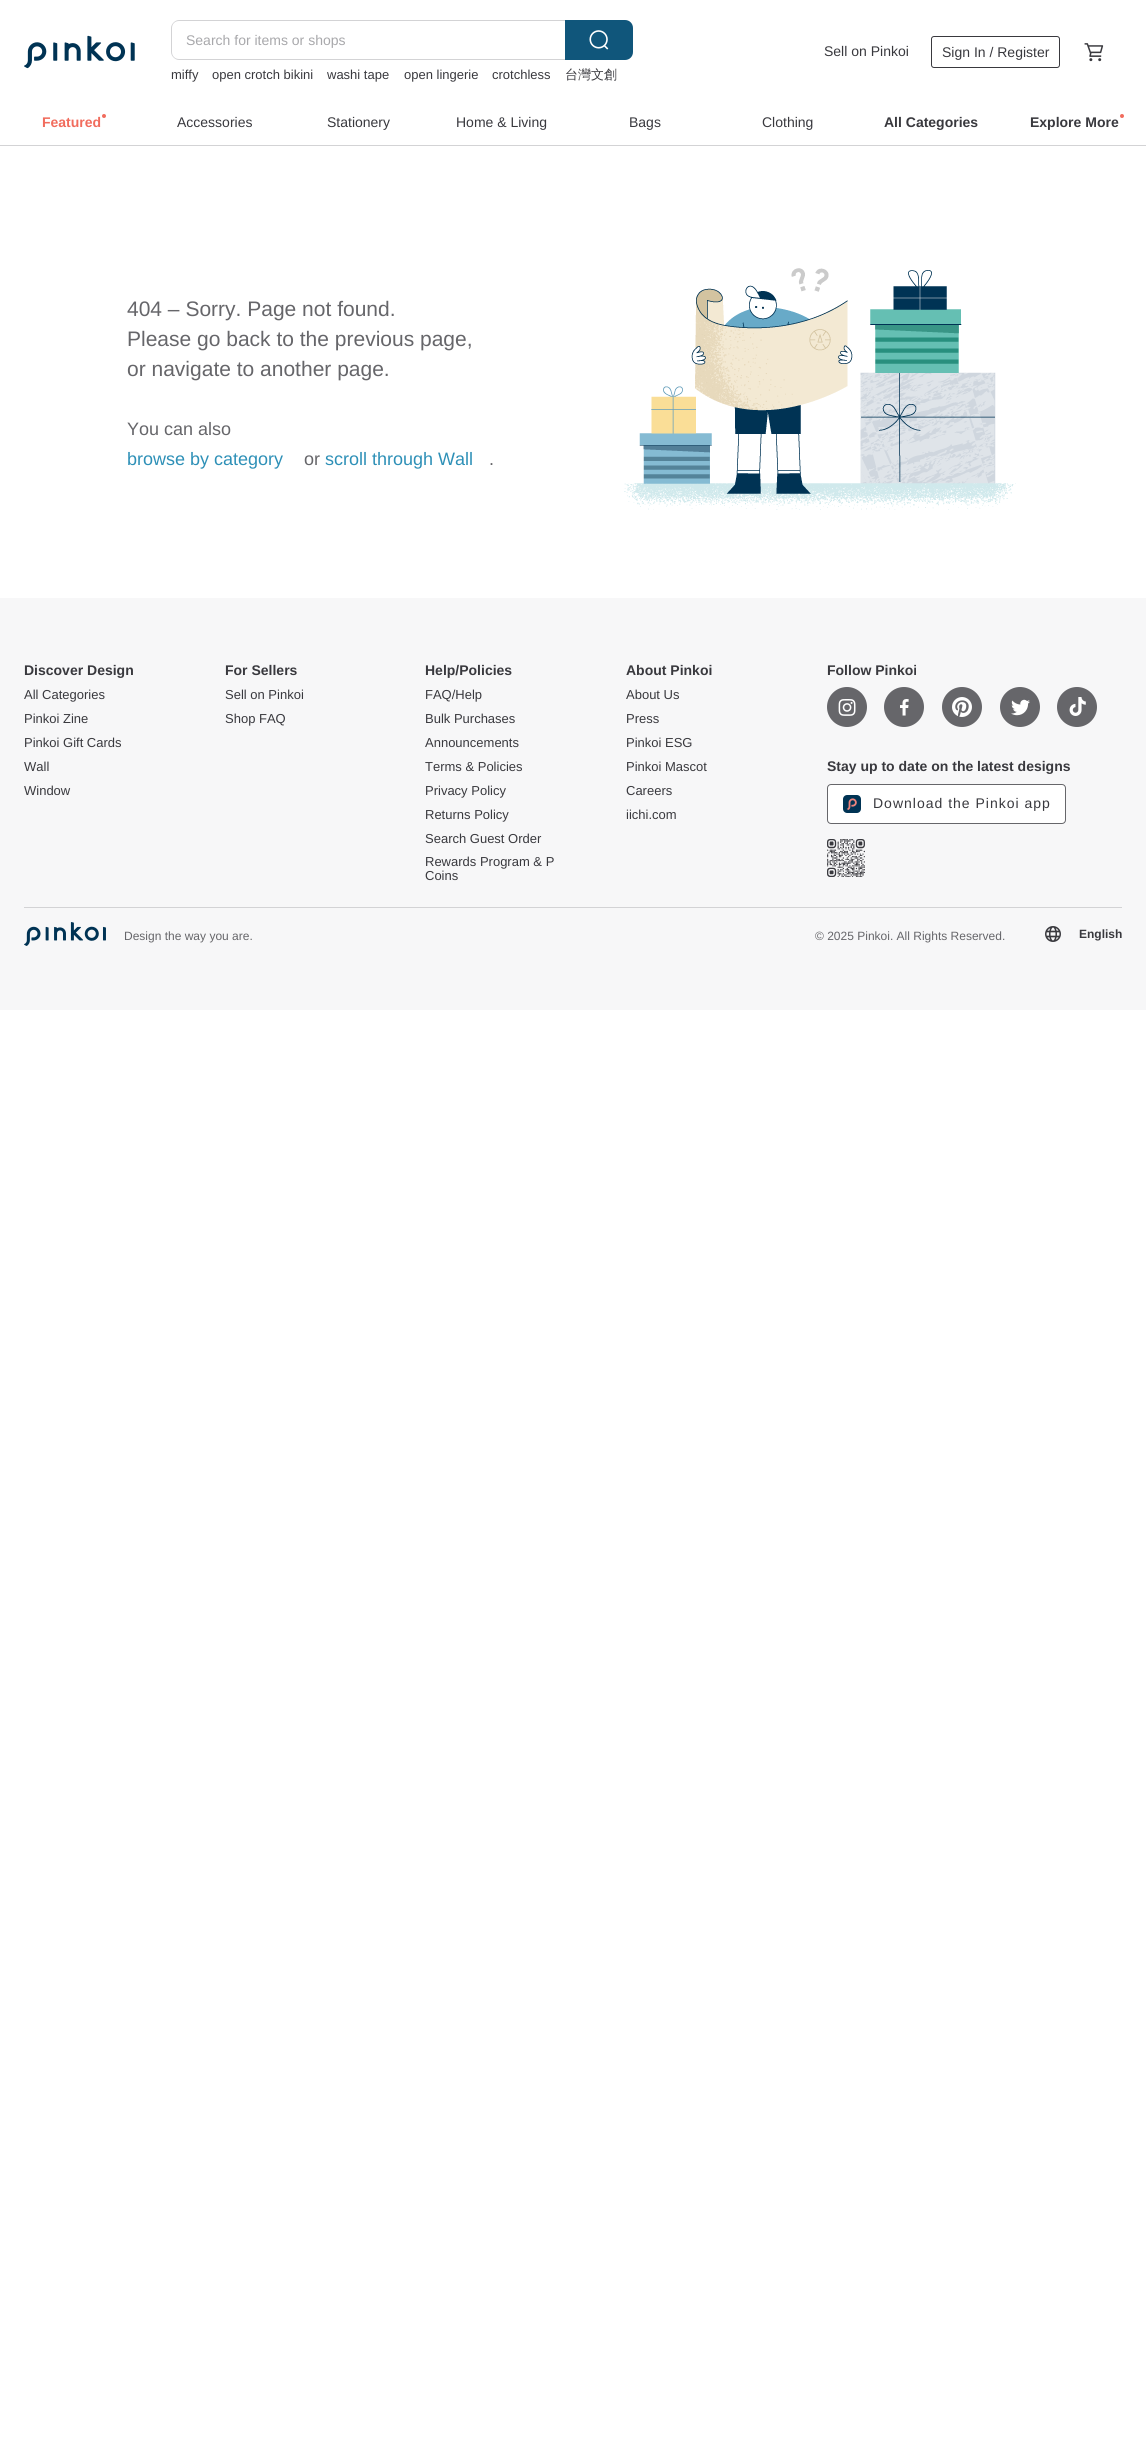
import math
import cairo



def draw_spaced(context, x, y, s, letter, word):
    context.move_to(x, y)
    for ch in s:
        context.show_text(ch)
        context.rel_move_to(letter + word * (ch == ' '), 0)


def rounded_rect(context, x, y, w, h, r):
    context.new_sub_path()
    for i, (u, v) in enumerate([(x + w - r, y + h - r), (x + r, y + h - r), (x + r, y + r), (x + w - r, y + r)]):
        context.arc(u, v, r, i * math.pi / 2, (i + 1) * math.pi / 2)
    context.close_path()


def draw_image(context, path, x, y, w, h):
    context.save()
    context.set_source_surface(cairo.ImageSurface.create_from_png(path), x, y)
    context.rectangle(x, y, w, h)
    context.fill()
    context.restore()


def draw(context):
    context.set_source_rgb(1, 1, 1)
    context.paint()
    draw_image(context, "images/1.png", 24, 35, 111, 34)
    context.set_source_rgb(211 / 255, 211 / 255, 213 / 255)
    context.set_fill_rule(cairo.FillRule.EVEN_ODD)
    context.new_path()
    context.move_to(179, 20)
    context.line_to(565, 20)
    context.line_to(565, 60)
    context.line_to(179, 60)
    context.curve_to(175, 60, 171, 56, 171, 52)
    context.line_to(171, 28)
    context.curve_to(171, 24, 175, 20, 179, 20)
    context.close_path()
    context.move_to(179, 21)
    context.line_to(565, 21)
    context.line_to(565, 59)
    context.line_to(179, 59)
    context.curve_to(175, 59, 172, 56, 172, 52)
    context.line_to(172, 28)
    context.curve_to(172, 24, 175, 21, 179, 21)
    context.close_path()
    context.fill()
    context.set_source_rgb(16 / 255, 86 / 255, 123 / 255)
    context.new_path()
    context.move_to(565, 20)
    context.line_to(625, 20)
    context.curve_to(629.5, 20, 633, 23.5, 633, 28)
    context.line_to(633, 52)
    context.curve_to(633, 56.5, 629.5, 60, 625, 60)
    context.line_to(565, 60)
    context.close_path()
    context.fill()
    draw_image(context, "images/2.png", 589, 30, 20, 20)
    rounded_rect(context, 931.5, 36.5, 128, 31, 2.5)
    context.set_source_rgb(57 / 255, 57 / 255, 62 / 255)
    context.set_line_width(1)
    context.stroke()
    draw_image(context, "images/3.png", 1084, 43, 20, 19)
    context.set_source_rgb(211 / 255, 211 / 255, 213 / 255)
    context.rectangle(0, 145, 1146, 1)
    context.fill()
    context.set_source_rgb(241 / 255, 108 / 255, 93 / 255)
    context.arc(104, 116, 2, 0, 2 * math.pi)
    context.fill()
    context.arc(1122, 116, 2, 0, 2 * math.pi)
    context.fill()
    draw_image(context, "images/4.png", 624, 268, 392, 242)
    context.set_source_rgb(247 / 255, 247 / 255, 248 / 255)
    context.rectangle(0, 598, 1146, 412)
    context.fill()
    context.set_source_rgb(211 / 255, 211 / 255, 213 / 255)
    context.rectangle(24, 907, 1098, 1)
    context.fill()
    draw_image(context, "images/5.png", 827, 687, 40, 40)
    draw_image(context, "images/6.png", 884, 687, 40, 40)
    draw_image(context, "images/7.png", 942, 687, 40, 40)
    draw_image(context, "images/8.png", 1000, 687, 40, 40)
    draw_image(context, "images/9.png", 1057, 687, 40, 40)
    context.set_source_rgb(1, 1, 1)
    rounded_rect(context, 827.5, 784.5, 238, 39, 3.5)
    context.fill_preserve()
    context.set_source_rgb(102 / 255, 102 / 255, 106 / 255)
    context.stroke()
    draw_image(context, "images/10.png", 843, 795, 18, 18)
    draw_image(context, "images/11.png", 827, 839, 38, 38)
    draw_image(context, "images/12.png", 24, 922, 82, 24)
    draw_image(context, "images/13.png", 1045, 926, 16, 16)
    context.select_font_face("Liberation Sans")
    context.set_font_size(14)
    context.set_source_rgb(168 / 255, 168 / 255, 171 / 255)
    context.move_to(186, 45)
    context.show_text("Search for items or shops")
    context.set_font_size(13)
    context.set_source_rgb(57 / 255, 57 / 255, 62 / 255)
    context.move_to(171, 79)
    context.show_text("miffy")
    context.move_to(212, 79)
    context.show_text("open crotch bikini")
    context.move_to(327, 79)
    context.show_text("washi tape")
    context.move_to(404, 79)
    context.show_text("open lingerie")
    context.move_to(492, 79)
    context.show_text("crotchless")
    context.select_font_face("WenQuanYi Zen Hei Medium")
    context.move_to(565, 79)
    context.show_text("台灣文創")
    context.select_font_face("Liberation Sans")
    context.set_font_size(14)
    context.move_to(824, 56)
    context.show_text("Sell on Pinkoi")
    context.move_to(942, 57)
    context.show_text("Sign In / Register")
    context.select_font_face("Liberation Sans", cairo.FontSlant.NORMAL, cairo.FontWeight.BOLD)
    context.set_source_rgb(241 / 255, 108 / 255, 93 / 255)
    context.move_to(42, 127)
    context.show_text("Featured")
    context.select_font_face("Liberation Sans")
    context.set_source_rgb(57 / 255, 57 / 255, 62 / 255)
    context.move_to(177, 127)
    context.show_text("Accessories")
    context.move_to(327, 127)
    context.show_text("Stationery")
    context.move_to(456, 127)
    context.show_text("Home & Living")
    context.move_to(629, 127)
    context.show_text("Bags")
    context.move_to(762, 127)
    context.show_text("Clothing")
    context.select_font_face("Liberation Sans", cairo.FontSlant.NORMAL, cairo.FontWeight.BOLD)
    context.move_to(884, 127)
    context.show_text("All Categories")
    context.move_to(1030, 127)
    context.show_text("Explore More")
    context.select_font_face("Liberation Sans")
    context.set_font_size(21)
    context.set_source_rgb(102 / 255, 102 / 255, 106 / 255)
    context.move_to(127, 316)
    context.show_text("404 – Sorry. Page not found.")
    context.move_to(127, 346)
    context.show_text("Please go back to the previous page,")
    context.move_to(127, 376)
    context.show_text("or navigate to another page.")
    context.set_font_size(18)
    context.move_to(127, 435)
    context.show_text("You can also")
    context.set_source_rgb(46 / 255, 144 / 255, 183 / 255)
    context.move_to(127, 465)
    context.show_text("browse by category")
    context.set_source_rgb(102 / 255, 102 / 255, 106 / 255)
    context.move_to(304, 465)
    context.show_text("or")
    context.set_source_rgb(46 / 255, 144 / 255, 183 / 255)
    context.move_to(325, 465)
    context.show_text("scroll through Wall")
    context.set_source_rgb(102 / 255, 102 / 255, 106 / 255)
    context.move_to(489, 465)
    context.show_text(".")
    context.select_font_face("Liberation Sans", cairo.FontSlant.NORMAL, cairo.FontWeight.BOLD)
    context.set_font_size(14)
    context.set_source_rgb(57 / 255, 57 / 255, 62 / 255)
    context.move_to(24, 675)
    context.show_text("Discover Design")
    context.select_font_face("Liberation Sans")
    context.set_font_size(13)
    context.move_to(24, 699)
    context.show_text("All Categories")
    context.move_to(24, 723)
    context.show_text("Pinkoi Zine")
    context.move_to(24, 747)
    context.show_text("Pinkoi Gift Cards")
    context.move_to(24, 771)
    context.show_text("Wall")
    context.move_to(24, 795)
    context.show_text("Window")
    context.select_font_face("Liberation Sans", cairo.FontSlant.NORMAL, cairo.FontWeight.BOLD)
    context.set_font_size(14)
    context.move_to(225, 675)
    context.show_text("For Sellers")
    context.select_font_face("Liberation Sans")
    context.set_font_size(13)
    context.move_to(225, 699)
    context.show_text("Sell on Pinkoi")
    context.move_to(225, 723)
    context.show_text("Shop FAQ")
    context.select_font_face("Liberation Sans", cairo.FontSlant.NORMAL, cairo.FontWeight.BOLD)
    context.set_font_size(14)
    context.move_to(425, 675)
    context.show_text("Help/Policies")
    context.select_font_face("Liberation Sans")
    context.set_font_size(13)
    context.move_to(425, 699)
    context.show_text("FAQ/Help")
    context.move_to(425, 723)
    context.show_text("Bulk Purchases")
    context.move_to(425, 747)
    context.show_text("Announcements")
    context.move_to(425, 771)
    context.show_text("Terms & Policies")
    context.move_to(425, 795)
    context.show_text("Privacy Policy")
    context.move_to(425, 819)
    context.show_text("Returns Policy")
    context.move_to(425, 843)
    context.show_text("Search Guest Order")
    context.move_to(425, 866)
    context.show_text("Rewards Program & P")
    context.move_to(425, 880)
    context.show_text("Coins")
    context.select_font_face("Liberation Sans", cairo.FontSlant.NORMAL, cairo.FontWeight.BOLD)
    context.set_font_size(14)
    context.move_to(626, 675)
    context.show_text("About Pinkoi")
    context.select_font_face("Liberation Sans")
    context.set_font_size(13)
    context.move_to(626, 699)
    context.show_text("About Us")
    context.move_to(626, 723)
    context.show_text("Press")
    context.move_to(626, 747)
    context.show_text("Pinkoi ESG")
    context.move_to(626, 771)
    context.show_text("Pinkoi Mascot")
    context.move_to(626, 795)
    context.show_text("Careers")
    context.move_to(626, 819)
    context.show_text("iichi.com")
    context.select_font_face("Liberation Sans", cairo.FontSlant.NORMAL, cairo.FontWeight.BOLD)
    context.set_font_size(14)
    context.move_to(827, 675)
    context.show_text("Follow Pinkoi")
    context.move_to(827, 771)
    context.show_text("Stay up to date on the latest designs")
    context.select_font_face("Liberation Sans")
    draw_spaced(context, 873, 808, "Download the Pinkoi app", 1, 0)
    context.set_font_size(12)
    context.set_source_rgb(102 / 255, 102 / 255, 106 / 255)
    context.move_to(124, 940)
    context.show_text("Design the way you are.")
    context.move_to(815, 940)
    context.show_text("© 2025 Pinkoi. All Rights Reserved.")
    context.select_font_face("Liberation Sans", cairo.FontSlant.NORMAL, cairo.FontWeight.BOLD)
    context.set_source_rgb(57 / 255, 57 / 255, 62 / 255)
    context.move_to(1079, 938)
    context.show_text("English")


surface = cairo.ImageSurface(cairo.Format.RGB24, 1146, 2454)
context = cairo.Context(surface)
options = cairo.FontOptions()
options.set_hint_metrics(cairo.HintMetrics.OFF)
options.set_hint_style(cairo.HintStyle.NONE)
context.set_font_options(options)
context.set_miter_limit(4)
draw(context)
surface.write_to_png("out.png")
